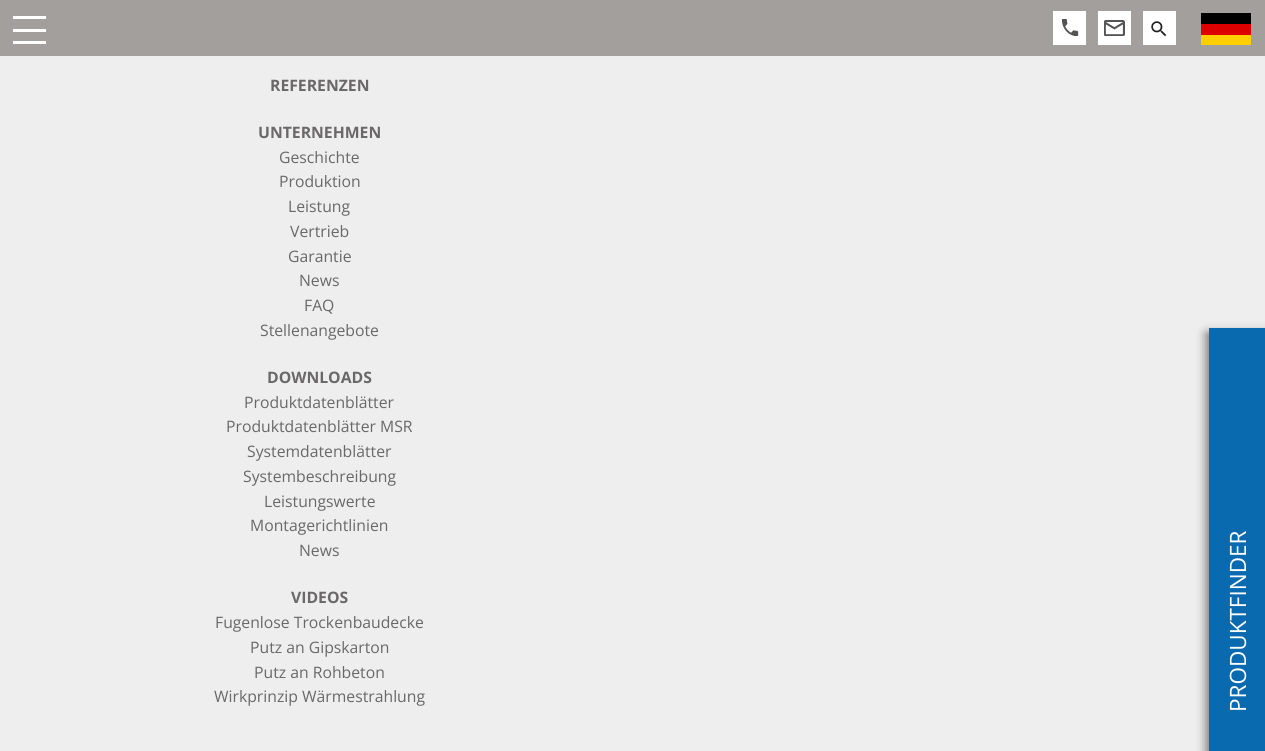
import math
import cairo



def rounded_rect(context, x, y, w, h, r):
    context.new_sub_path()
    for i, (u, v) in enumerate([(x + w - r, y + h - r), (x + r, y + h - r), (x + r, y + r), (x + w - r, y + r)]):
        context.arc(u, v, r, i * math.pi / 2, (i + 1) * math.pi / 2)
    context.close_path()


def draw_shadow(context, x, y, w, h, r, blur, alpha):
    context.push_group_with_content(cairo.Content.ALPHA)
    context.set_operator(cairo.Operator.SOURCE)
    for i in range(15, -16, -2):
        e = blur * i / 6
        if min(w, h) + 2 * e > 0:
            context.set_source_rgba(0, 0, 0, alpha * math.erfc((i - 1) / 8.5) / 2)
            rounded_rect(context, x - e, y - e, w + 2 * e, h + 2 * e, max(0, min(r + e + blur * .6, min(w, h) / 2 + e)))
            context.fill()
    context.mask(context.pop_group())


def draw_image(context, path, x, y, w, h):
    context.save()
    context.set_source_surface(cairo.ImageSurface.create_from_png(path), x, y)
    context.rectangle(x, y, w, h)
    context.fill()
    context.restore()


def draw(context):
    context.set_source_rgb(238 / 255, 238 / 255, 238 / 255)
    context.paint()
    context.set_source_rgb(162 / 255, 159 / 255, 157 / 255)
    context.rectangle(0, 0, 1265, 56)
    context.fill()
    context.set_source_rgb(1, 1, 1)
    context.rectangle(13, 41, 33, 3)
    context.fill()
    context.rectangle(13, 29, 33, 3)
    context.fill()
    context.rectangle(13, 16, 33, 3)
    context.fill()
    context.rectangle(1053, 11, 33, 34)
    context.fill()
    draw_image(context, "images/1.png", 1061, 19, 18, 17)
    context.rectangle(1098, 11, 33, 34)
    context.fill()
    draw_image(context, "images/2.png", 1104, 20, 21, 16)
    context.rectangle(1143, 11, 33, 34)
    context.fill()
    draw_image(context, "images/3.png", 1151, 21, 16, 16)
    context.set_source_rgb(1, 206 / 255, 0)
    context.rectangle(1201, 35, 50, 10)
    context.fill()
    context.set_source_rgb(0, 0, 0)
    context.rectangle(1201, 13, 50, 11)
    context.fill()
    context.set_source_rgb(221 / 255, 0, 0)
    context.rectangle(1201, 24, 50, 11)
    context.fill()
    context.set_source_rgb(0, 0, 0)
    draw_shadow(context, 1206, 333, 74, 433, 0, 5, 0.5)
    context.set_source_rgb(10 / 255, 106 / 255, 176 / 255)
    context.rectangle(1209, 328, 56, 423)
    context.fill()
    context.select_font_face("Open Sans", cairo.FontSlant.NORMAL, cairo.FontWeight.BOLD)
    context.set_font_size(15.75)
    context.set_source_rgb(106 / 255, 104 / 255, 104 / 255)
    context.move_to(270, 91)
    context.show_text("REFERENZEN")
    context.move_to(258, 138)
    context.show_text("UNTERNEHMEN")
    context.select_font_face("Open Sans")
    context.move_to(279, 163)
    context.show_text("Geschichte")
    context.move_to(279, 187)
    context.show_text("Produktion")
    context.move_to(288, 212)
    context.show_text("Leistung")
    context.move_to(290, 237)
    context.show_text("Vertrieb")
    context.move_to(288, 262)
    context.show_text("Garantie")
    context.move_to(299, 286)
    context.show_text("News")
    context.move_to(304, 311)
    context.show_text("FAQ")
    context.move_to(260, 336)
    context.show_text("Stellenangebote")
    context.select_font_face("Open Sans", cairo.FontSlant.NORMAL, cairo.FontWeight.BOLD)
    context.move_to(267, 383)
    context.show_text("DOWNLOADS")
    context.select_font_face("Open Sans")
    context.move_to(244, 408)
    context.show_text("Produktdatenblätter")
    context.move_to(226, 432)
    context.show_text("Produktdatenblätter MSR")
    context.move_to(247, 457)
    context.show_text("Systemdatenblätter")
    context.move_to(243, 482)
    context.show_text("Systembeschreibung")
    context.move_to(264, 507)
    context.show_text("Leistungswerte")
    context.move_to(250, 531)
    context.show_text("Montagerichtlinien")
    context.move_to(299, 556)
    context.show_text("News")
    context.select_font_face("Open Sans", cairo.FontSlant.NORMAL, cairo.FontWeight.BOLD)
    context.move_to(291, 603)
    context.show_text("VIDEOS")
    context.select_font_face("Open Sans")
    context.move_to(215, 628)
    context.show_text("Fugenlose Trockenbaudecke")
    context.move_to(250, 653)
    context.show_text("Putz an Gipskarton")
    context.move_to(254, 678)
    context.show_text("Putz an Rohbeton")
    context.move_to(214, 702)
    context.show_text("Wirkprinzip Wärmestrahlung")
    context.set_font_size(22.5)
    context.set_source_rgb(1, 1, 1)
    context.save()
    context.translate(1246, 712)
    context.rotate(-90 * math.pi / 180)
    context.move_to(0, 0)
    context.show_text("PRODUKTFINDER")
    context.restore()


surface = cairo.ImageSurface(cairo.Format.RGB24, 1265, 751)
context = cairo.Context(surface)
options = cairo.FontOptions()
options.set_hint_metrics(cairo.HintMetrics.OFF)
options.set_hint_style(cairo.HintStyle.NONE)
context.set_font_options(options)
context.set_miter_limit(4)
draw(context)
surface.write_to_png("out.png")
